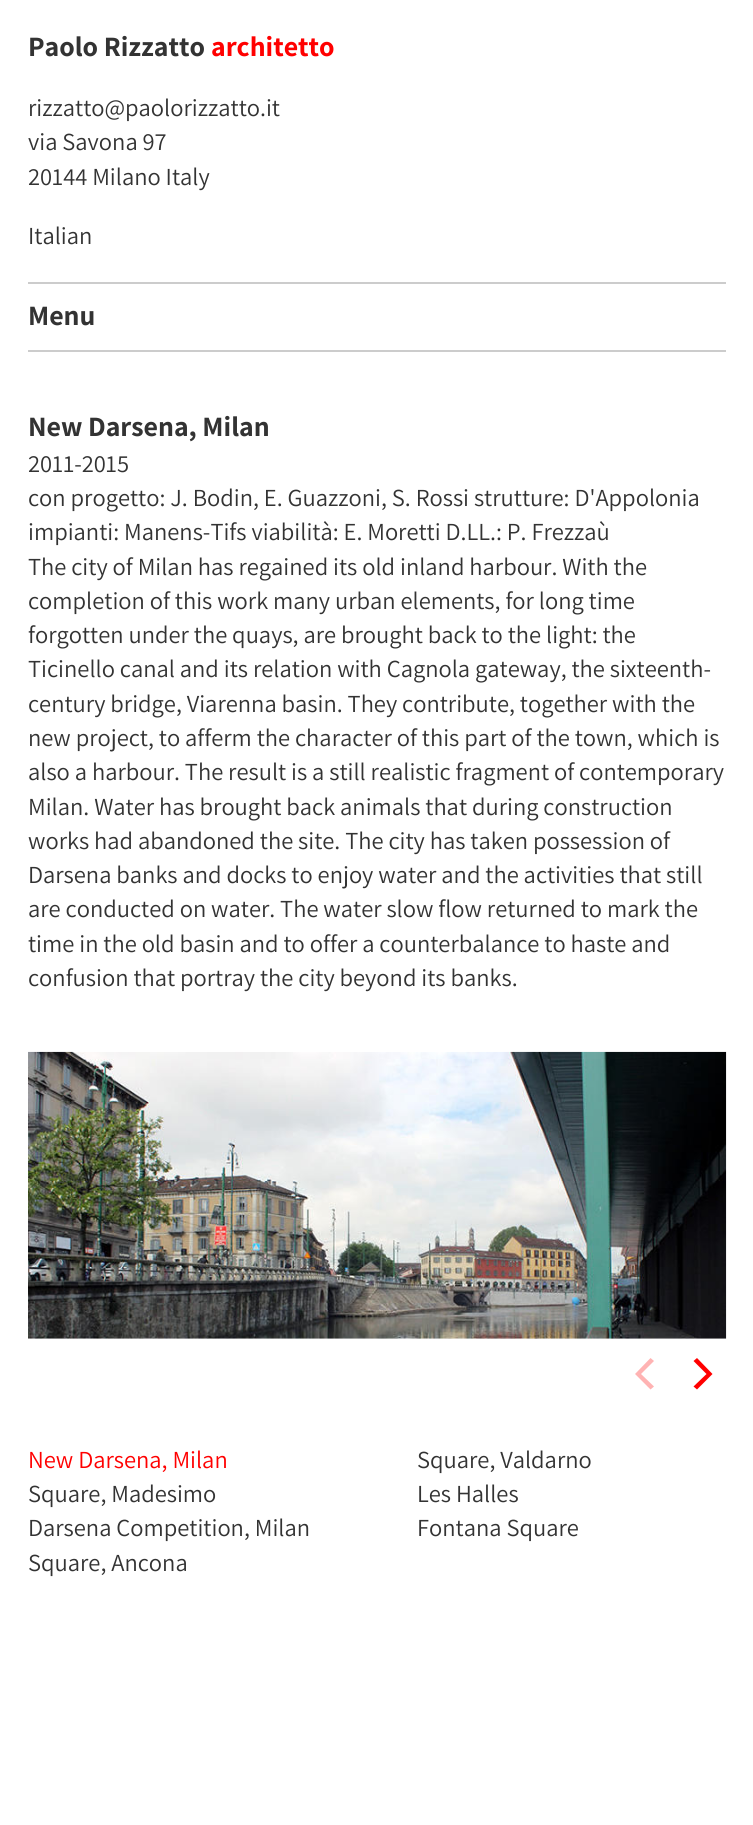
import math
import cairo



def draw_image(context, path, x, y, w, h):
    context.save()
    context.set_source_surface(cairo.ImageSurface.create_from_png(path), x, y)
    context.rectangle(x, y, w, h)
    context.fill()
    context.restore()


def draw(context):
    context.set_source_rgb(1, 1, 1)
    context.paint()
    context.set_source_rgb(204 / 255, 204 / 255, 204 / 255)
    context.rectangle(28, 282, 698, 2)
    context.fill()
    context.rectangle(28, 350, 698, 2)
    context.fill()
    draw_image(context, "images/1.png", 28, 1051, 699, 288)
    context.set_source_rgb(1, 179 / 255, 179 / 255)
    context.new_path()
    context.move_to(635, 1374)
    context.line_to(650.5, 1389.5)
    context.line_to(654, 1386.5)
    context.line_to(641, 1374)
    context.line_to(654, 1361)
    context.line_to(650.5, 1358)
    context.close_path()
    context.fill()
    context.set_source_rgb(1, 0, 0)
    context.new_path()
    context.move_to(712.5, 1374)
    context.line_to(697, 1358)
    context.line_to(693.5, 1361)
    context.line_to(706.5, 1374)
    context.line_to(693.5, 1386.5)
    context.line_to(697, 1389.5)
    context.close_path()
    context.fill()
    context.select_font_face("Assistant", cairo.FontSlant.NORMAL, cairo.FontWeight.BOLD)
    context.set_font_size(28)
    context.set_source_rgb(51 / 255, 51 / 255, 51 / 255)
    context.move_to(28, 56)
    context.show_text("Paolo Rizzatto")
    context.set_source_rgb(1, 0, 0)
    context.move_to(211, 56)
    context.show_text("architetto")
    context.select_font_face("Assistant")
    context.set_font_size(24.5)
    context.set_source_rgb(51 / 255, 51 / 255, 51 / 255)
    context.move_to(28, 116)
    context.show_text("rizzatto@paolorizzatto.it")
    context.move_to(28, 150)
    context.show_text("via Savona 97")
    context.move_to(28, 185)
    context.show_text("20144 Milano Italy")
    context.move_to(28, 244)
    context.show_text("Italian")
    context.select_font_face("Assistant", cairo.FontSlant.NORMAL, cairo.FontWeight.BOLD)
    context.set_font_size(28)
    context.move_to(28, 325)
    context.show_text("Menu")
    context.move_to(28, 436)
    context.show_text("New Darsena, Milan")
    context.select_font_face("Assistant")
    context.set_font_size(24.5)
    context.move_to(28, 472)
    context.show_text("2011-2015")
    context.move_to(28, 506)
    context.show_text("con progetto: J. Bodin, E. Guazzoni, S. Rossi strutture: D'Appolonia")
    context.move_to(28, 540)
    context.show_text("impianti: Manens-Tifs viabilità: E. Moretti D.LL.: P. Frezzaù")
    context.move_to(28, 575)
    context.show_text("The city of Milan has regained its old inland harbour. With the")
    context.move_to(28, 609)
    context.show_text("completion of this work many urban elements, for long time")
    context.move_to(28, 643)
    context.show_text("forgotten under the quays, are brought back to the light: the")
    context.move_to(28, 677)
    context.show_text("Ticinello canal and its relation with Cagnola gateway, the sixteenth-")
    context.move_to(28, 712)
    context.show_text("century bridge, Viarenna basin. They contribute, together with the")
    context.move_to(28, 746)
    context.show_text("new project, to afferm the character of this part of the town, which is")
    context.move_to(28, 780)
    context.show_text("also a harbour. The result is a still realistic fragment of contemporary")
    context.move_to(28, 815)
    context.show_text("Milan. Water has brought back animals that during construction")
    context.move_to(28, 849)
    context.show_text("works had abandoned the site. The city has taken possession of")
    context.move_to(28, 883)
    context.show_text("Darsena banks and docks to enjoy water and the activities that still")
    context.move_to(28, 917)
    context.show_text("are conducted on water. The water slow flow returned to mark the")
    context.move_to(28, 952)
    context.show_text("time in the old basin and to offer a counterbalance to haste and")
    context.move_to(28, 986)
    context.show_text("confusion that portray the city beyond its banks.")
    context.set_source_rgb(1, 0, 0)
    context.move_to(28, 1468)
    context.show_text("New Darsena, Milan")
    context.set_source_rgb(51 / 255, 51 / 255, 51 / 255)
    context.move_to(417, 1468)
    context.show_text("Square, Valdarno")
    context.move_to(28, 1502)
    context.show_text("Square, Madesimo")
    context.move_to(417, 1502)
    context.show_text("Les Halles")
    context.move_to(28, 1536)
    context.show_text("Darsena Competition, Milan")
    context.move_to(417, 1536)
    context.show_text("Fontana Square")
    context.move_to(28, 1571)
    context.show_text("Square, Ancona")


surface = cairo.ImageSurface(cairo.Format.RGB24, 753, 1825)
context = cairo.Context(surface)
options = cairo.FontOptions()
options.set_hint_metrics(cairo.HintMetrics.OFF)
options.set_hint_style(cairo.HintStyle.NONE)
context.set_font_options(options)
context.set_miter_limit(4)
draw(context)
surface.write_to_png("out.png")
